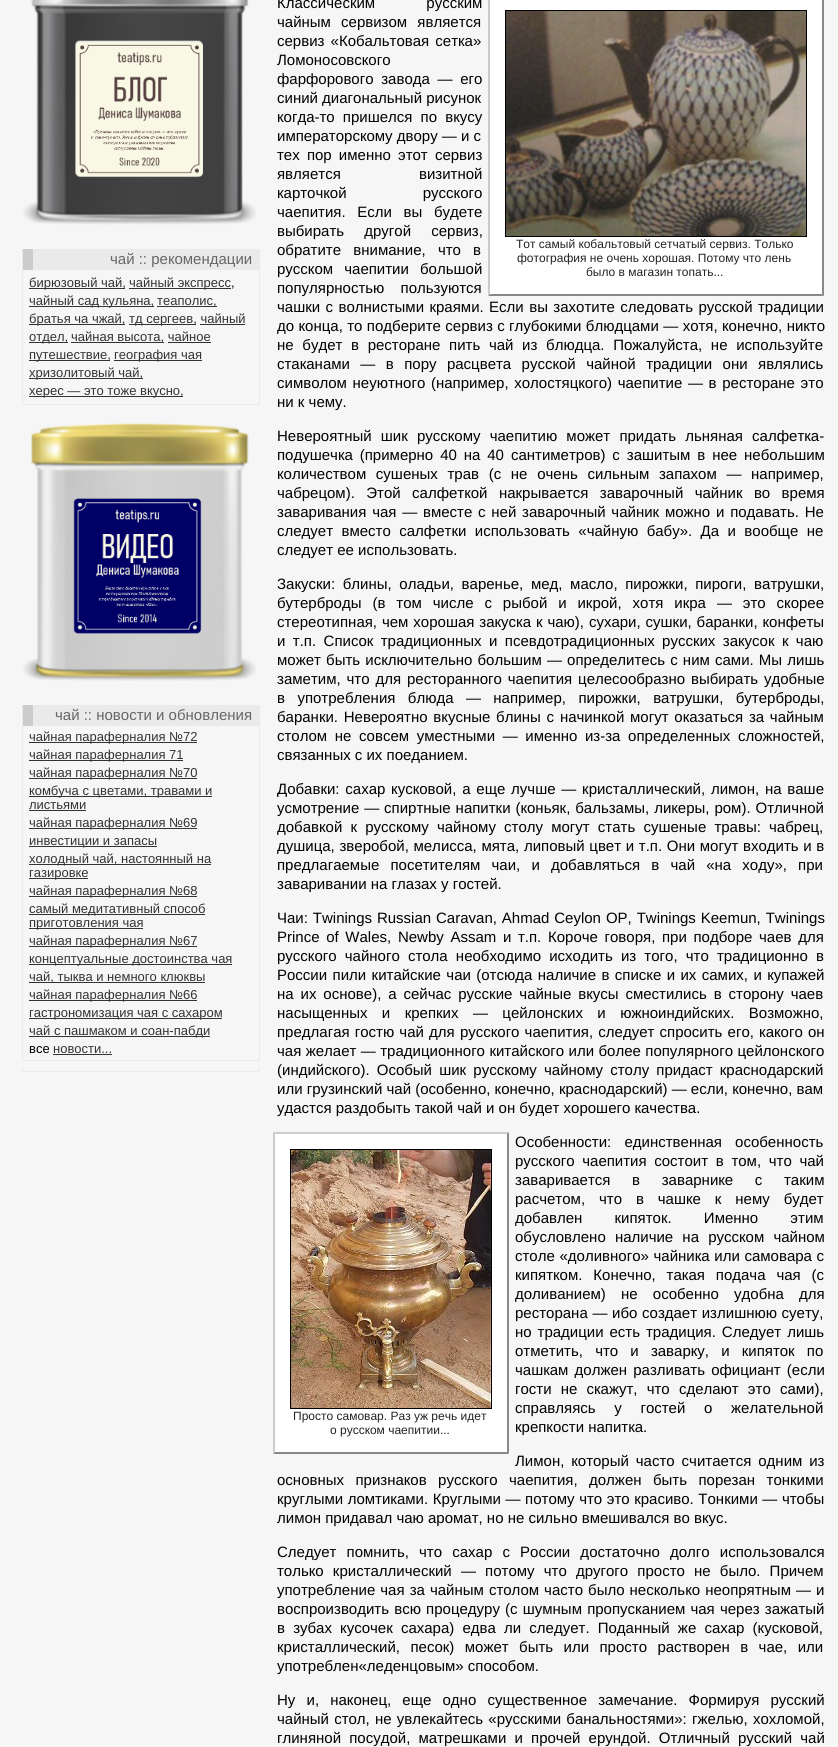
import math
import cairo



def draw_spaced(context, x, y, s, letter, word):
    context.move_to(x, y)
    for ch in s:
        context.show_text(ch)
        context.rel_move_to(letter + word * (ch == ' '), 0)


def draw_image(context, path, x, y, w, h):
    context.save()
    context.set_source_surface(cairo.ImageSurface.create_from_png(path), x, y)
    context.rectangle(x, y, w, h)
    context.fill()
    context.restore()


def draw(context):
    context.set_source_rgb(246 / 255, 246 / 255, 246 / 255)
    context.paint()
    draw_image(context, "images/1.png", 23, 0, 233, 225)
    context.set_source_rgb(234 / 255, 234 / 255, 234 / 255)
    context.rectangle(259, 249, 1, 156)
    context.fill()
    context.rectangle(22, 404, 238, 1)
    context.fill()
    context.rectangle(22, 249, 1, 156)
    context.fill()
    context.rectangle(33, 249, 226, 21)
    context.fill()
    context.set_source_rgb(204 / 255, 204 / 255, 204 / 255)
    context.rectangle(23, 249, 10, 21)
    context.fill()
    context.set_source_rgb(51 / 255, 51 / 255, 51 / 255)
    context.rectangle(29, 288, 96, 1)
    context.fill()
    context.rectangle(129, 288, 102, 1)
    context.fill()
    context.rectangle(29, 306, 125, 1)
    context.fill()
    context.rectangle(157, 306, 60, 1)
    context.fill()
    context.rectangle(29, 324, 96, 1)
    context.fill()
    context.rectangle(129, 324, 67, 1)
    context.fill()
    context.rectangle(200, 324, 45, 1)
    context.fill()
    context.rectangle(29, 342, 39, 1)
    context.fill()
    context.rectangle(71, 342, 93, 1)
    context.fill()
    context.rectangle(168, 342, 43, 1)
    context.fill()
    context.rectangle(29, 360, 81, 1)
    context.fill()
    context.rectangle(114, 360, 88, 1)
    context.fill()
    context.rectangle(29, 378, 114, 1)
    context.fill()
    context.rectangle(29, 396, 154, 1)
    context.fill()
    draw_image(context, "images/2.png", 23, 423, 233, 258)
    context.set_source_rgb(234 / 255, 234 / 255, 234 / 255)
    context.rectangle(259, 705, 1, 356)
    context.fill()
    context.rectangle(22, 1060, 238, 1)
    context.fill()
    context.rectangle(22, 705, 1, 356)
    context.fill()
    context.rectangle(33, 705, 226, 21)
    context.fill()
    context.set_source_rgb(204 / 255, 204 / 255, 204 / 255)
    context.rectangle(23, 705, 10, 21)
    context.fill()
    context.set_source_rgb(51 / 255, 51 / 255, 51 / 255)
    context.rectangle(29, 742, 168, 1)
    context.fill()
    context.rectangle(29, 760, 154, 1)
    context.fill()
    context.rectangle(29, 778, 168, 1)
    context.fill()
    context.rectangle(29, 796, 183, 1)
    context.fill()
    context.rectangle(29, 810, 57, 1)
    context.fill()
    context.rectangle(29, 828, 168, 1)
    context.fill()
    context.rectangle(29, 846, 128, 1)
    context.fill()
    context.rectangle(29, 864, 182, 1)
    context.fill()
    context.rectangle(29, 878, 59, 1)
    context.fill()
    context.rectangle(29, 896, 168, 1)
    context.fill()
    context.rectangle(29, 914, 176, 1)
    context.fill()
    context.rectangle(29, 928, 114, 1)
    context.fill()
    context.rectangle(29, 946, 168, 1)
    context.fill()
    context.rectangle(29, 964, 203, 1)
    context.fill()
    context.rectangle(29, 982, 176, 1)
    context.fill()
    context.rectangle(29, 1000, 168, 1)
    context.fill()
    context.rectangle(29, 1018, 193, 1)
    context.fill()
    context.rectangle(29, 1036, 181, 1)
    context.fill()
    context.rectangle(53, 1054, 59, 1)
    context.fill()
    context.set_source_rgb(234 / 255, 234 / 255, 234 / 255)
    context.rectangle(259, 1067, 1, 5)
    context.fill()
    context.rectangle(22, 1071, 238, 1)
    context.fill()
    context.rectangle(22, 1067, 1, 5)
    context.fill()
    context.set_source_rgb(1, 1, 1)
    context.rectangle(488, 0, 336, 296)
    context.fill()
    context.set_source_rgb(136 / 255, 136 / 255, 136 / 255)
    context.new_path()
    context.move_to(824, -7)
    context.line_to(824, 296)
    context.line_to(822, 294)
    context.line_to(822, -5)
    context.close_path()
    context.fill()
    context.new_path()
    context.move_to(824, 296)
    context.line_to(488, 296)
    context.line_to(490, 294)
    context.line_to(822, 294)
    context.close_path()
    context.fill()
    context.set_source_rgb(204 / 255, 204 / 255, 204 / 255)
    context.new_path()
    context.move_to(488, 296)
    context.line_to(488, -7)
    context.line_to(490, -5)
    context.line_to(490, 294)
    context.close_path()
    context.fill()
    context.rectangle(505.5, 10.5, 301, 226)
    context.set_source_rgb(0, 0, 0)
    context.set_line_width(1)
    context.stroke()
    draw_image(context, "images/3.png", 506, 11, 300, 225)
    context.set_source_rgb(1, 1, 1)
    context.rectangle(273, 1132, 236, 322)
    context.fill()
    context.set_source_rgb(204 / 255, 204 / 255, 204 / 255)
    context.new_path()
    context.move_to(273, 1132)
    context.line_to(509, 1132)
    context.line_to(507, 1134)
    context.line_to(275, 1134)
    context.close_path()
    context.fill()
    context.set_source_rgb(136 / 255, 136 / 255, 136 / 255)
    context.new_path()
    context.move_to(509, 1132)
    context.line_to(509, 1454)
    context.line_to(507, 1452)
    context.line_to(507, 1134)
    context.close_path()
    context.fill()
    context.new_path()
    context.move_to(509, 1454)
    context.line_to(273, 1454)
    context.line_to(275, 1452)
    context.line_to(507, 1452)
    context.close_path()
    context.fill()
    context.set_source_rgb(204 / 255, 204 / 255, 204 / 255)
    context.new_path()
    context.move_to(273, 1454)
    context.line_to(273, 1132)
    context.line_to(275, 1134)
    context.line_to(275, 1452)
    context.close_path()
    context.fill()
    context.rectangle(290.5, 1149.5, 201, 259)
    context.set_source_rgb(0, 0, 0)
    context.stroke()
    draw_image(context, "images/4.png", 291, 1150, 200, 258)
    context.select_font_face("Liberation Sans")
    context.set_font_size(15)
    context.set_source_rgb(102 / 255, 102 / 255, 102 / 255)
    context.move_to(110, 264)
    context.show_text("чай :: рекомендации")
    context.set_font_size(13)
    context.set_source_rgb(51 / 255, 51 / 255, 51 / 255)
    context.move_to(29, 287)
    context.show_text("бирюзовый чай,")
    context.move_to(129, 287)
    context.show_text("чайный экспресс")
    context.set_source_rgb(0, 0, 0)
    context.move_to(231, 287)
    context.show_text(",")
    context.set_source_rgb(51 / 255, 51 / 255, 51 / 255)
    context.move_to(29, 305)
    context.show_text("чайный сад кульяна,")
    context.move_to(157, 305)
    context.show_text("теаполис,")
    context.move_to(29, 323)
    context.show_text("братья ча чжай,")
    context.move_to(129, 323)
    context.show_text("тд сергеев, чайный")
    context.move_to(29, 341)
    context.show_text("отдел,")
    context.move_to(71, 341)
    context.show_text("чайная высота, чайное")
    context.move_to(29, 359)
    context.show_text("путешествие,")
    context.move_to(114, 359)
    context.show_text("география чая")
    context.move_to(29, 377)
    context.show_text("хризолитовый чай,")
    context.move_to(29, 395)
    context.show_text("херес — это тоже вкусно,")
    context.set_font_size(15)
    context.set_source_rgb(102 / 255, 102 / 255, 102 / 255)
    context.move_to(55, 720)
    context.show_text("чай :: новости и обновления")
    context.set_font_size(13)
    context.set_source_rgb(51 / 255, 51 / 255, 51 / 255)
    context.move_to(29, 741)
    context.show_text("чайная параферналия №72")
    context.move_to(29, 759)
    context.show_text("чайная параферналия 71")
    context.move_to(29, 777)
    context.show_text("чайная параферналия №70")
    context.move_to(29, 795)
    context.show_text("комбуча с цветами, травами и")
    context.move_to(29, 809)
    context.show_text("листьями")
    context.move_to(29, 827)
    context.show_text("чайная параферналия №69")
    context.move_to(29, 845)
    context.show_text("инвестиции и запасы")
    context.move_to(29, 863)
    context.show_text("холодный чай, настоянный на")
    context.move_to(29, 877)
    context.show_text("газировке")
    context.move_to(29, 895)
    context.show_text("чайная параферналия №68")
    context.move_to(29, 913)
    context.show_text("самый медитативный способ")
    context.move_to(29, 927)
    context.show_text("приготовления чая")
    context.move_to(29, 945)
    context.show_text("чайная параферналия №67")
    context.move_to(29, 963)
    context.show_text("концептуальные достоинства чая")
    context.move_to(29, 981)
    context.show_text("чай, тыква и немного клюквы")
    context.move_to(29, 999)
    context.show_text("чайная параферналия №66")
    context.move_to(29, 1017)
    context.show_text("гастрономизация чая с сахаром")
    context.move_to(29, 1035)
    context.show_text("чай с пашмаком и соан-пабди")
    context.set_source_rgb(0, 0, 0)
    context.move_to(29, 1053)
    context.show_text("все")
    context.set_source_rgb(51 / 255, 51 / 255, 51 / 255)
    context.move_to(53, 1053)
    context.show_text("новости...")
    context.set_font_size(15)
    context.set_source_rgb(0, 0, 0)
    draw_spaced(context, 277, 8, "Классическим русским", 0, 47)
    draw_spaced(context, 277, 27, "чайным сервизом является", 0, 6)
    draw_spaced(context, 277, 46, "сервиз «Кобальтовая сетка»", 0, 2)
    context.move_to(277, 65)
    context.show_text("Ломоносовского")
    draw_spaced(context, 277, 84, "фарфорового завода — его", 0, 3.5)
    context.move_to(277, 103)
    context.show_text("синий диагональный рисунок")
    draw_spaced(context, 277, 122, "когда-то пришелся по вкусу", 0, 4)
    context.move_to(277, 141)
    context.show_text("императорскому двору — и с")
    draw_spaced(context, 277, 160, "тех пор именно этот сервиз", 0, 3)
    draw_spaced(context, 277, 179, "является визитной", 0, 74)
    draw_spaced(context, 277, 198, "карточкой русского", 0, 72)
    draw_spaced(context, 277, 217, "чаепития. Если вы будете", 0, 7.5)
    draw_spaced(context, 277, 236, "выбирать другой сервиз,", 0, 16)
    draw_spaced(context, 277, 255, "обратите внимание, что в", 0, 8)
    draw_spaced(context, 277, 274, "русском чаепитии большой", 0, 7)
    draw_spaced(context, 277, 293, "популярностью пользуются", 0, 12)
    draw_spaced(context, 277, 312, "чашки с волнистыми краями. Если вы захотите следовать русской традиции", 0, 1.25)
    draw_spaced(context, 277, 331, "до конца, то подберите сервиз с глубокими блюдцами — хотя, конечно, никто", 0, 0.25)
    draw_spaced(context, 277, 350, "не будет в ресторане пить чай из блюдца. Пожалуйста, не используйте", 0, 4.5)
    draw_spaced(context, 277, 369, "стаканами — в пору расцвета русской чайной традиции они являлись", 0, 6.25)
    draw_spaced(context, 277, 388, "символом неуютного (например, холостяцкого) чаепитие — в ресторане это", 0, 1.5)
    context.move_to(277, 407)
    context.show_text("ни к чему.")
    context.set_font_size(12)
    context.set_source_rgb(34 / 255, 34 / 255, 34 / 255)
    context.move_to(516, 248)
    context.show_text("Тот самый кобальтовый сетчатый сервиз. Только")
    context.move_to(517, 262)
    context.show_text("фотография не очень хорошая. Потому что лень")
    context.move_to(586, 276)
    context.show_text("было в магазин топать...")
    context.set_font_size(15)
    context.set_source_rgb(0, 0, 0)
    draw_spaced(context, 277, 441, "Невероятный шик русскому чаепитию может придать льняная салфетка-", 0, 5)
    draw_spaced(context, 277, 460, "подушечка (примерно 40 на 40 сантиметров) с зашитым в нее небольшим", 0, 2.75)
    draw_spaced(context, 277, 479, "количеством сушеных трав (с не очень сильным запахом — например,", 0, 5.5)
    draw_spaced(context, 277, 498, "чабрецом). Этой салфеткой накрывается заварочный чайник во время", 0, 7.25)
    draw_spaced(context, 277, 517, "заваривания чая — вместе с ней заварочный чайник можно и подавать. Не", 0, 1.6)
    draw_spaced(context, 277, 536, "следует вместо салфетки использовать «чайную бабу». Да и вообще не", 0, 4.25)
    context.move_to(277, 555)
    context.show_text("следует ее использовать.")
    draw_spaced(context, 277, 589, "Закуски: блины, оладьи, варенье, мед, масло, пирожки, пироги, ватрушки,", 0, 3.5)
    draw_spaced(context, 277, 608, "бутерброды (в том числе с рыбой и икрой, хотя икра — это скорее", 0, 6.75)
    draw_spaced(context, 277, 627, "стереотипная, чем хорошая закуска к чаю), сухари, сушки, баранки, конфеты", 0, 0.75)
    draw_spaced(context, 277, 646, "и т.п. Список традиционных и псевдотрадиционных русских закусок к чаю", 0, 3.25)
    draw_spaced(context, 277, 665, "может быть исключительно большим — определитесь с ним сами. Мы лишь", 0, 1)
    draw_spaced(context, 277, 684, "заметим, что для ресторанного чаепития целесообразно выбирать удобные", 0, 1.75)
    draw_spaced(context, 277, 703, "в употребления блюда — например, пирожки, ватрушки, бутерброды,", 0, 8.25)
    draw_spaced(context, 277, 722, "баранки. Невероятно вкусные блины с начинкой могут оказаться за чайным", 0, 1.6)
    draw_spaced(context, 277, 741, "столом не совсем уместными — именно из-за определенных сложностей,", 0, 3.5)
    context.move_to(277, 760)
    context.show_text("связанных с их поеданием.")
    draw_spaced(context, 277, 794, "Добавки: сахар кусковой, а еще лучше — кристаллический, лимон, на ваше", 0, 1.6)
    draw_spaced(context, 277, 813, "усмотрение — спиртные напитки (коньяк, бальзамы, ликеры, ром). Отличной", 0, 0.75)
    draw_spaced(context, 277, 832, "добавкой к русскому чайному столу могут стать сушеные травы: чабрец,", 0, 4)
    draw_spaced(context, 277, 851, "душица, зверобой, мелисса, мята, липовый цвет и т.п. Они могут входить и в", 0, 0.5)
    draw_spaced(context, 277, 870, "предлагаемые посетителям чаи, и добавляться в чай «на ходу», при", 0, 7)
    context.move_to(277, 889)
    context.show_text("заваривании на глазах у гостей.")
    draw_spaced(context, 277, 923, "Чаи: Twinings Russian Caravan, Ahmad Ceylon OP, Twinings Keemun, Twinings", 0, 0.75)
    draw_spaced(context, 277, 942, "Prince of Wales, Newby Assam и т.п. Короче говоря, при подборе чаев для", 0, 2.5)
    draw_spaced(context, 277, 961, "русского чайного стола необходимо исходить из того, что традиционно в", 0, 4)
    draw_spaced(context, 277, 980, "России пили китайские чаи (отсюда наличие в списке и их самих, и купажей", 0, 1.25)
    draw_spaced(context, 277, 999, "на их основе), а сейчас русские чайные вкусы сместились в сторону чаев", 0, 2.75)
    draw_spaced(context, 277, 1018, "насыщенных и крепких — цейлонских и южноиндийских. Возможно,", 0, 10.25)
    draw_spaced(context, 277, 1037, "предлагая гостю чай для русского чаепития, следует спросить его, какого он", 0, 1)
    draw_spaced(context, 277, 1056, "чая желает — традиционного китайского или более популярного цейлонского", 0, 0.25)
    draw_spaced(context, 277, 1075, "(индийского). Особый шик русскому чайному столу придаст краснодарский", 0, 3)
    context.move_to(277, 1094)
    context.show_text("или грузинский чай (особенно, конечно, краснодарский) — если, конечно, вам")
    context.move_to(277, 1113)
    context.show_text("удастся раздобыть такой чай и он будет хорошего качества.")
    context.set_font_size(12)
    context.set_source_rgb(34 / 255, 34 / 255, 34 / 255)
    context.move_to(293, 1420)
    context.show_text("Просто самовар. Раз уж речь идет")
    context.move_to(330, 1434)
    context.show_text("о русском чаепитии...")
    context.set_font_size(15)
    context.set_source_rgb(0, 0, 0)
    draw_spaced(context, 515, 1147, "Особенности: единственная особенность", 0, 9)
    draw_spaced(context, 515, 1166, "русского чаепития состоит в том, что чай", 0, 3.5)
    draw_spaced(context, 515, 1185, "заваривается в заварнике с таким", 0, 17.5)
    draw_spaced(context, 515, 1204, "расчетом, что в чашке к нему будет", 0, 9.75)
    draw_spaced(context, 515, 1223, "добавлен кипяток. Именно этим", 0, 28)
    draw_spaced(context, 515, 1242, "обусловлено наличие на русском чайном", 0, 5)
    draw_spaced(context, 515, 1261, "столе «доливного» чайника или самовара с", 0, 0.5)
    draw_spaced(context, 515, 1280, "кипятком. Конечно, такая подача чая (с", 0, 6.75)
    draw_spaced(context, 515, 1299, "доливанием) не особенно удобна для", 0, 11)
    draw_spaced(context, 515, 1318, "ресторана — ибо создает излишнюю суету,", 0, 0.5)
    draw_spaced(context, 515, 1337, "но традиции есть традиция. Следует лишь", 0, 1.75)
    draw_spaced(context, 515, 1356, "отметить, что и заварку, и кипяток по", 0, 8)
    draw_spaced(context, 515, 1375, "чашкам должен разливать официант (если", 0, 2)
    draw_spaced(context, 515, 1394, "гости не скажут, что сделают это сами),", 0, 5)
    draw_spaced(context, 515, 1413, "справляясь у гостей о желательной", 0, 14.5)
    context.move_to(515, 1432)
    context.show_text("крепкости напитка.")
    draw_spaced(context, 515, 1466, "Лимон, который часто считается одним из", 0, 2.75)
    draw_spaced(context, 277, 1485, "основных признаков русского чаепития, должен быть порезан тонкими", 0, 7.25)
    draw_spaced(context, 277, 1504, "круглыми ломтиками. Круглыми — потому что это красиво. Тонкими — чтобы", 0, 0.4)
    context.move_to(277, 1523)
    context.show_text("лимон придавал чаю аромат, но не сильно вмешивался во вкус.")
    draw_spaced(context, 277, 1557, "Следует помнить, что сахар с России достаточно долго использовался", 0, 6)
    draw_spaced(context, 277, 1576, "только кристаллический — потому что другого просто не было. Причем", 0, 5)
    draw_spaced(context, 277, 1595, "употребление чая за чайным столом часто было несколько неопрятным — и", 0, 0.9)
    draw_spaced(context, 277, 1614, "воспроизводить всю процедуру (с шумным пропусканием чая через зажатый", 0, 1)
    draw_spaced(context, 277, 1633, "в зубах кусочек сахара) едва ли следует. Поданный же сахар (кусковой,", 0, 4)
    draw_spaced(context, 277, 1652, "кристаллический, песок) может быть или просто растворен в чае, или", 0, 6.25)
    context.move_to(277, 1671)
    context.show_text("употреблен«леденцовым» способом.")
    draw_spaced(context, 277, 1705, "Ну и, наконец, еще одно существенное замечание. Формируя русский", 0, 7)
    draw_spaced(context, 277, 1724, "чайный стол, не увлекайтесь «русскими банальностями»: гжелью, хохломой,", 0, 1)
    draw_spaced(context, 277, 1743, "глиняной посудой, матрешками и прочей ерундой. Отличный русский чай", 0, 4)


surface = cairo.ImageSurface(cairo.Format.RGB24, 838, 1747)
context = cairo.Context(surface)
options = cairo.FontOptions()
options.set_hint_metrics(cairo.HintMetrics.OFF)
options.set_hint_style(cairo.HintStyle.NONE)
context.set_font_options(options)
context.set_miter_limit(4)
draw(context)
surface.write_to_png("out.png")
